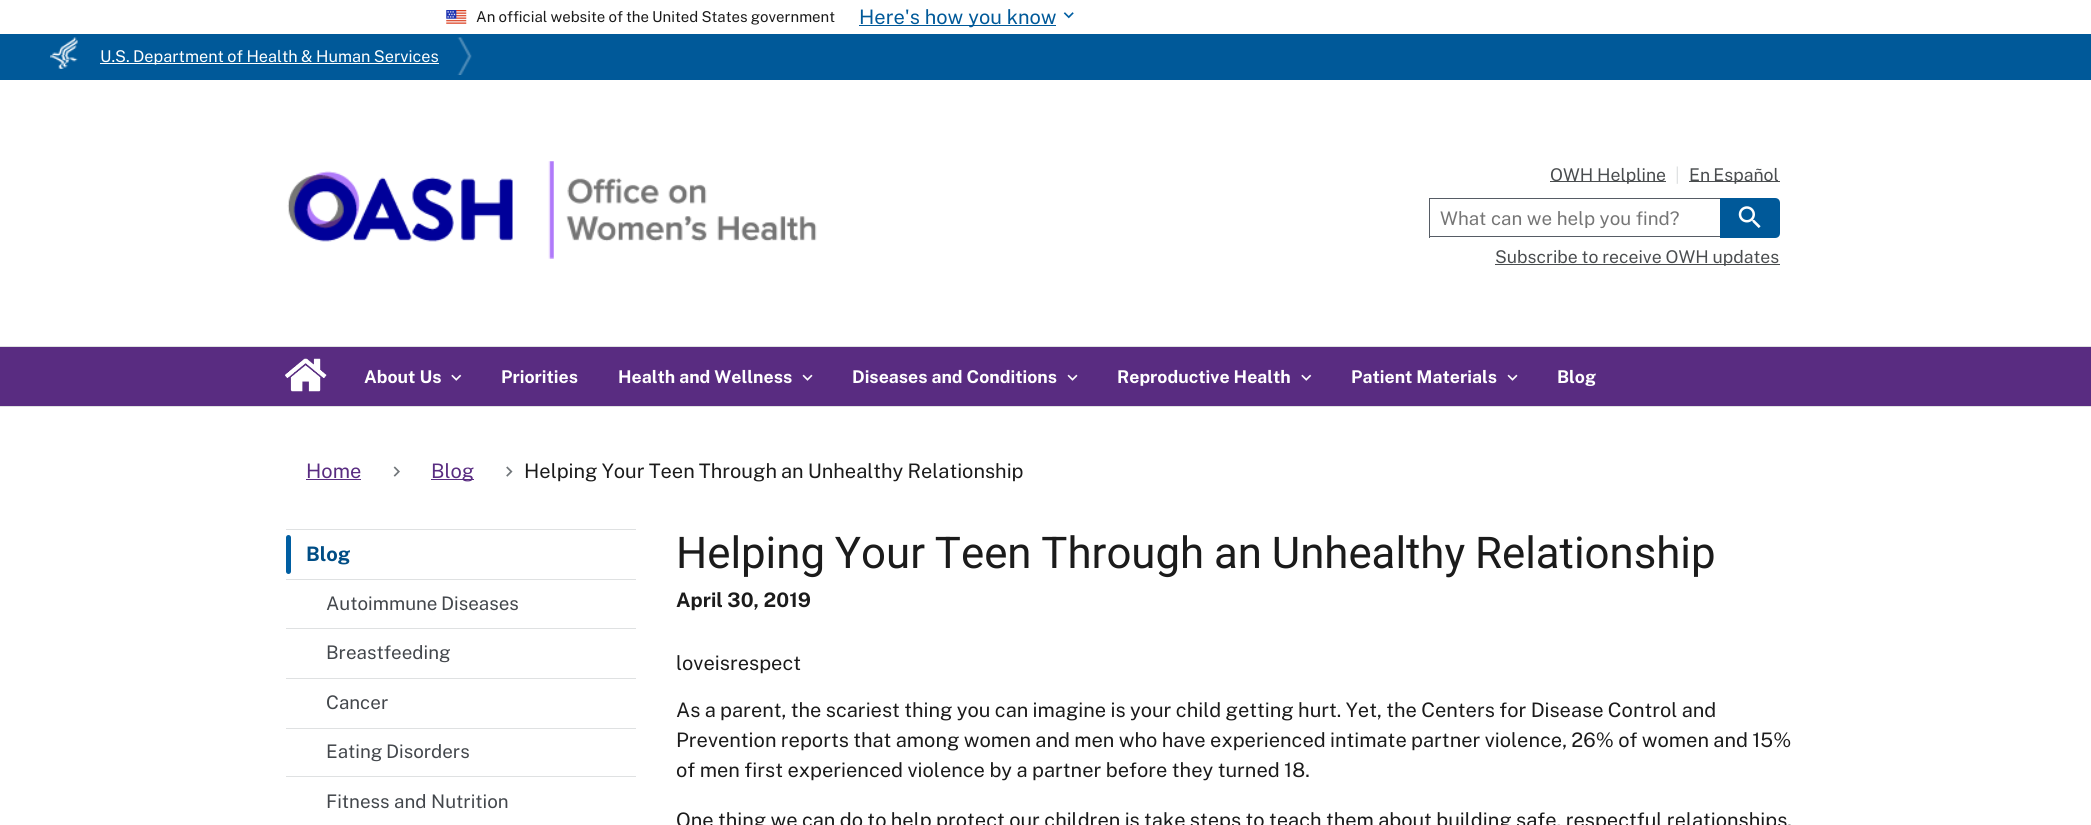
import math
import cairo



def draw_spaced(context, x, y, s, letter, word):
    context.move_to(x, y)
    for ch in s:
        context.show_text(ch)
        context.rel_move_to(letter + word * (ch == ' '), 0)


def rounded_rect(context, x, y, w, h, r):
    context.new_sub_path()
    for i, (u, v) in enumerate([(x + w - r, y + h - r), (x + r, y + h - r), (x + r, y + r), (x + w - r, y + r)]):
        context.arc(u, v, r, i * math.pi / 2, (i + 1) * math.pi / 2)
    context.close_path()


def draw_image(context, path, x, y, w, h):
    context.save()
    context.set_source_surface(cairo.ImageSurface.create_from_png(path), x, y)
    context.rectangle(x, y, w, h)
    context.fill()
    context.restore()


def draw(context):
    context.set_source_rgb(1, 1, 1)
    context.paint()
    draw_image(context, "images/1.png", 446, 10, 21, 14)
    context.set_source_rgb(0, 89 / 255, 153 / 255)
    context.rectangle(859, 25, 197, 1)
    context.fill()
    draw_image(context, "images/2.png", 1063, 12, 11, 7)
    context.rectangle(0, 34, 2091, 46)
    context.fill()
    draw_image(context, "images/3.png", 457, 37, 15, 38)
    draw_image(context, "images/4.png", 50, 37, 28, 32)
    context.set_source_rgb(1, 1, 1)
    context.rectangle(100, 63, 339, 1)
    context.fill()
    draw_image(context, "images/5.png", 287, 161, 530, 98)
    context.set_source_rgb(89 / 255, 44 / 255, 129 / 255)
    context.rectangle(0, 347, 2091, 59)
    context.fill()
    context.set_source_rgb(223 / 255, 225 / 255, 226 / 255)
    context.rectangle(0, 346, 2091, 1)
    context.fill()
    context.set_source_rgb(74 / 255, 77 / 255, 79 / 255)
    context.rectangle(1550, 181, 116, 1)
    context.fill()
    context.rectangle(1689, 181, 91, 1)
    context.fill()
    context.set_source_rgb(86 / 255, 92 / 255, 101 / 255)
    context.rectangle(1429, 198, 291, 1)
    context.fill()
    context.rectangle(1429, 236, 291, 1)
    context.fill()
    context.rectangle(1429, 198, 1, 40)
    context.fill()
    context.set_source_rgb(0, 89 / 255, 153 / 255)
    context.new_path()
    context.move_to(1720, 198)
    context.line_to(1775, 198)
    context.curve_to(1778, 198, 1780, 200, 1780, 203)
    context.line_to(1780, 233)
    context.curve_to(1780, 236, 1778, 238, 1775, 238)
    context.line_to(1720, 238)
    context.close_path()
    context.fill()
    draw_image(context, "images/6.png", 1738, 206, 23, 22)
    context.set_source_rgb(74 / 255, 77 / 255, 79 / 255)
    context.rectangle(1495, 264, 285, 1)
    context.fill()
    draw_image(context, "images/7.png", 285, 358, 42, 34)
    draw_image(context, "images/8.png", 451, 374, 11, 7)
    draw_image(context, "images/9.png", 802, 374, 11, 7)
    draw_image(context, "images/9.png", 1067, 374, 11, 7)
    draw_image(context, "images/8.png", 1301, 374, 11, 7)
    draw_image(context, "images/9.png", 1507, 374, 11, 7)
    context.set_source_rgb(223 / 255, 225 / 255, 226 / 255)
    context.rectangle(0, 406, 2091, 1)
    context.fill()
    context.set_source_rgb(89 / 255, 44 / 255, 129 / 255)
    context.rectangle(306, 479, 55, 1)
    context.fill()
    draw_image(context, "images/10.png", 393, 466, 7, 11)
    context.rectangle(431, 479, 43, 1)
    context.fill()
    draw_image(context, "images/11.png", 506, 466, 7, 11)
    context.set_source_rgb(223 / 255, 225 / 255, 226 / 255)
    context.rectangle(286, 529, 350, 1)
    context.fill()
    context.set_source_rgb(0, 94 / 255, 162 / 255)
    rounded_rect(context, 286, 535, 5, 39, 2.5)
    context.fill()
    context.set_source_rgb(223 / 255, 225 / 255, 226 / 255)
    context.rectangle(286, 579, 350, 1)
    context.fill()
    context.rectangle(286, 628, 350, 1)
    context.fill()
    context.rectangle(286, 678, 350, 1)
    context.fill()
    context.rectangle(286, 728, 350, 1)
    context.fill()
    context.rectangle(286, 776, 350, 1)
    context.fill()
    context.select_font_face("Public Sans")
    context.set_font_size(15)
    context.set_source_rgb(27 / 255, 27 / 255, 27 / 255)
    draw_spaced(context, 476, 22, "An official website of the United States government", 0, -0.5)
    context.set_font_size(20)
    context.set_source_rgb(0, 89 / 255, 153 / 255)
    context.move_to(859, 24)
    context.show_text("Here's how you know")
    context.set_font_size(16.25)
    context.set_source_rgb(1, 1, 1)
    draw_spaced(context, 100, 62, "U.S. Department of Health & Human Services", 0, -0.5)
    context.set_font_size(17.6)
    context.set_source_rgb(74 / 255, 77 / 255, 79 / 255)
    draw_spaced(context, 1550, 181, "OWH Helpline", 0, -0.5)
    context.set_source_rgb(223 / 255, 225 / 255, 226 / 255)
    context.move_to(1675, 181)
    context.show_text("|")
    context.set_source_rgb(74 / 255, 77 / 255, 79 / 255)
    draw_spaced(context, 1689, 181, "En Español", 0, -1)
    context.set_font_size(18.75)
    context.set_source_rgb(117 / 255, 117 / 255, 117 / 255)
    context.move_to(1440, 225)
    context.show_text("What can we help you find?")
    context.set_font_size(17.6)
    context.set_source_rgb(74 / 255, 77 / 255, 79 / 255)
    draw_spaced(context, 1495, 263, "Subscribe to receive OWH updates", 0, -0.5)
    context.select_font_face("Public Sans", cairo.FontSlant.NORMAL, cairo.FontWeight.BOLD)
    context.set_source_rgb(1, 1, 1)
    context.move_to(364, 383)
    context.show_text("About Us")
    context.move_to(501, 383)
    context.show_text("Priorities")
    context.move_to(618, 383)
    context.show_text("Health and Wellness")
    context.move_to(852, 383)
    context.show_text("Diseases and Conditions")
    context.move_to(1117, 383)
    context.show_text("Reproductive Health")
    context.move_to(1351, 383)
    context.show_text("Patient Materials")
    context.move_to(1557, 383)
    context.show_text("Blog")
    context.select_font_face("Public Sans")
    context.set_font_size(20)
    context.set_source_rgb(89 / 255, 44 / 255, 129 / 255)
    context.move_to(306, 478)
    context.show_text("Home")
    context.move_to(431, 478)
    context.show_text("Blog")
    context.set_source_rgb(27 / 255, 27 / 255, 27 / 255)
    draw_spaced(context, 524, 478, "Helping Your Teen Through an Unhealthy Relationship", 0, -0.75)
    context.select_font_face("Public Sans", cairo.FontSlant.NORMAL, cairo.FontWeight.BOLD)
    context.set_source_rgb(0, 77 / 255, 133 / 255)
    context.move_to(306, 561)
    context.show_text("Blog")
    context.select_font_face("Public Sans")
    context.set_font_size(18.75)
    context.set_source_rgb(67 / 255, 71 / 255, 76 / 255)
    draw_spaced(context, 326, 610, "Autoimmune Diseases", 0, -1)
    context.move_to(326, 659)
    context.show_text("Breastfeeding")
    context.move_to(326, 709)
    context.show_text("Cancer")
    draw_spaced(context, 326, 758, "Eating Disorders", 0, -1)
    context.move_to(326, 808)
    context.show_text("Fitness and Nutrition")
    context.select_font_face("Roboto")
    context.set_font_size(43.75)
    context.set_source_rgb(27 / 255, 27 / 255, 27 / 255)
    draw_spaced(context, 676, 568, "Helping Your Teen Through an Unhealthy Relationship", 0, -1)
    context.select_font_face("Public Sans", cairo.FontSlant.NORMAL, cairo.FontWeight.BOLD)
    context.set_font_size(20)
    context.move_to(676, 607)
    context.show_text("April 30, 2019")
    context.select_font_face("Public Sans")
    context.move_to(676, 670)
    context.show_text("loveisrespect")
    draw_spaced(context, 676, 717, "As a parent, the scariest thing you can imagine is your child getting hurt. Yet, the Centers for Disease Control and", 0, -0.5)
    draw_spaced(context, 676, 747, "Prevention reports that among women and men who have experienced intimate partner violence, 26% of women and 15%", 0, -0.5)
    draw_spaced(context, 676, 777, "of men first experienced violence by a partner before they turned 18.", 0, -0.4)
    draw_spaced(context, 676, 827, "One thing we can do to help protect our children is take steps to teach them about building safe, respectful relationships.", 0, -0.5)


surface = cairo.ImageSurface(cairo.Format.RGB24, 2091, 825)
context = cairo.Context(surface)
options = cairo.FontOptions()
options.set_hint_metrics(cairo.HintMetrics.OFF)
options.set_hint_style(cairo.HintStyle.NONE)
context.set_font_options(options)
context.set_miter_limit(4)
draw(context)
surface.write_to_png("out.png")
